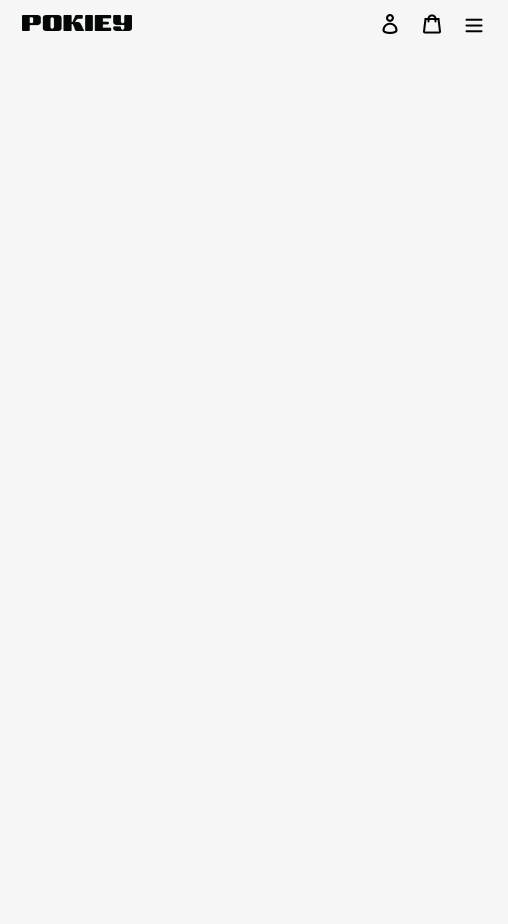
import math
import cairo



def draw_image(context, path, x, y, w, h):
    context.save()
    context.set_source_surface(cairo.ImageSurface.create_from_png(path), x, y)
    context.rectangle(x, y, w, h)
    context.fill()
    context.restore()


def draw(context):
    context.set_source_rgb(246 / 255, 246 / 255, 246 / 255)
    context.paint()
    draw_image(context, "images/1.png", 22, 15, 110, 16)
    draw_image(context, "images/2.png", 382, 14, 16, 20)
    draw_image(context, "images/3.png", 423, 14, 18, 20)
    draw_image(context, "images/4.png", 465, 18, 18, 15)


surface = cairo.ImageSurface(cairo.Format.RGB24, 508, 924)
context = cairo.Context(surface)
options = cairo.FontOptions()
options.set_hint_metrics(cairo.HintMetrics.OFF)
options.set_hint_style(cairo.HintStyle.NONE)
context.set_font_options(options)
context.set_miter_limit(4)
draw(context)
surface.write_to_png("out.png")
